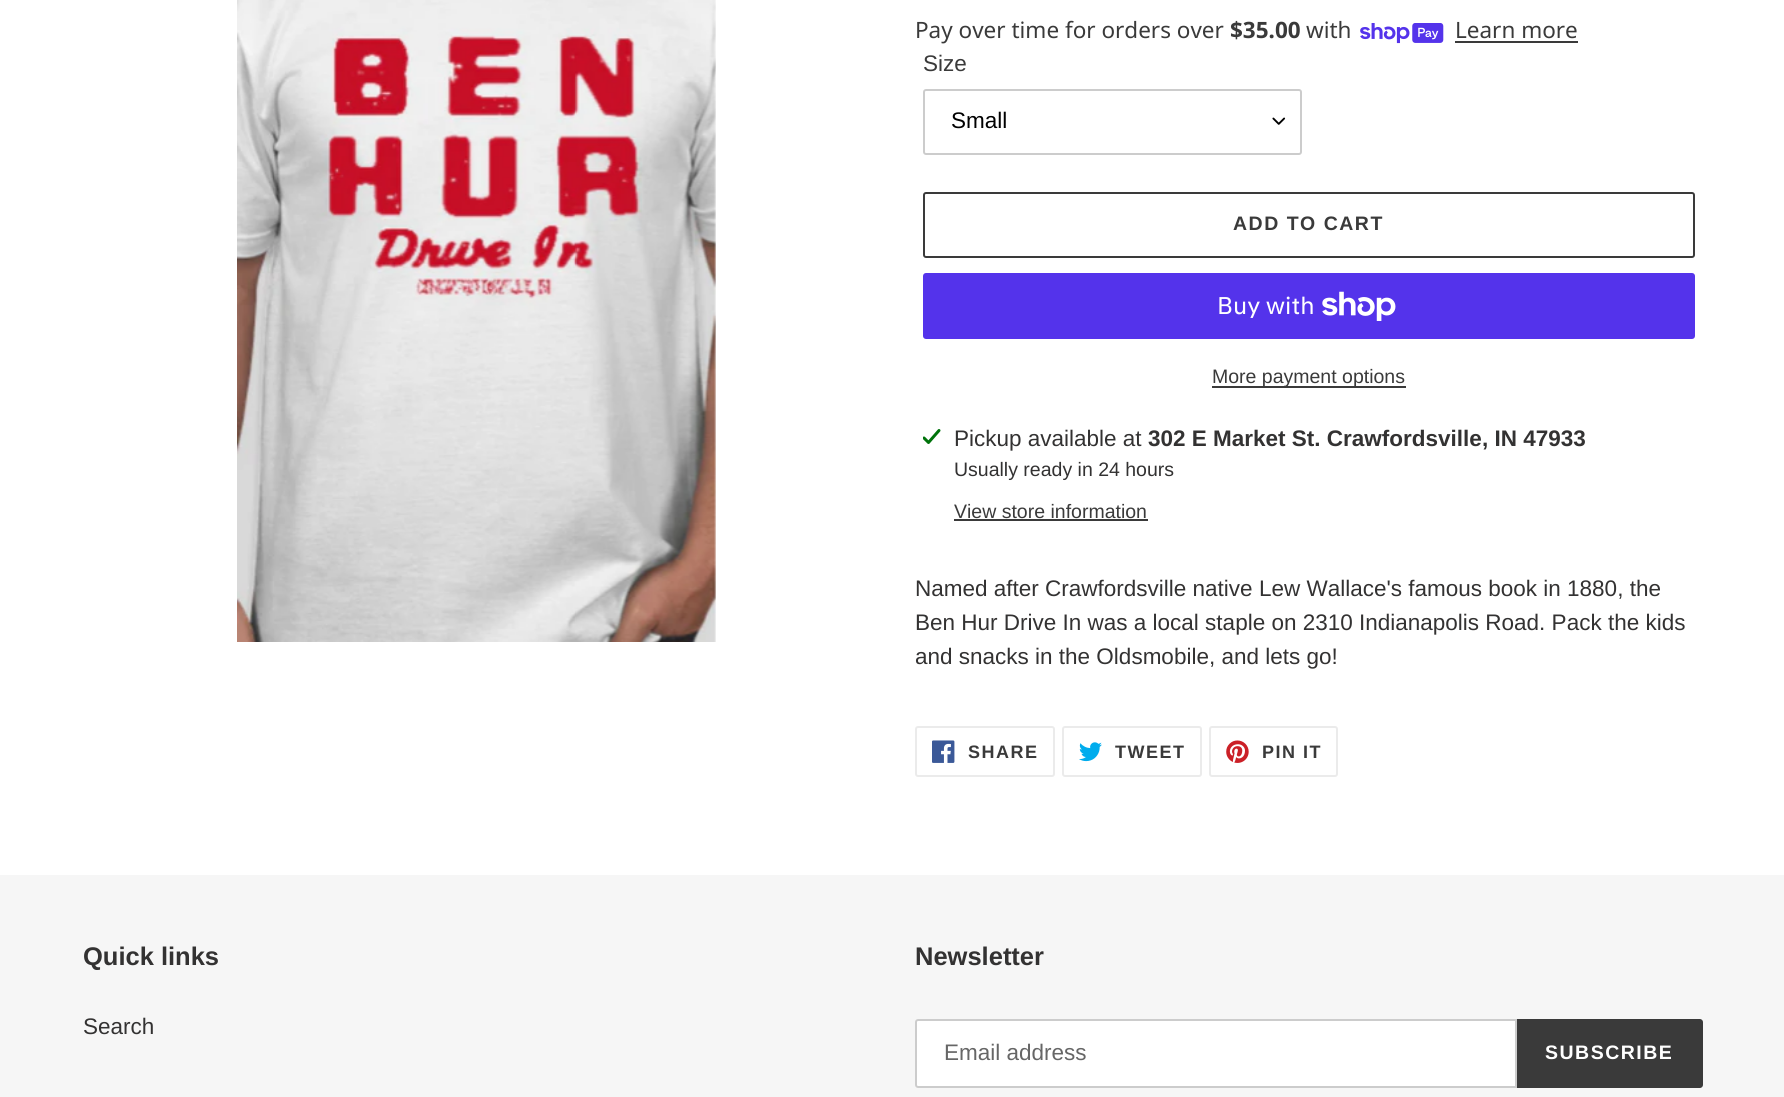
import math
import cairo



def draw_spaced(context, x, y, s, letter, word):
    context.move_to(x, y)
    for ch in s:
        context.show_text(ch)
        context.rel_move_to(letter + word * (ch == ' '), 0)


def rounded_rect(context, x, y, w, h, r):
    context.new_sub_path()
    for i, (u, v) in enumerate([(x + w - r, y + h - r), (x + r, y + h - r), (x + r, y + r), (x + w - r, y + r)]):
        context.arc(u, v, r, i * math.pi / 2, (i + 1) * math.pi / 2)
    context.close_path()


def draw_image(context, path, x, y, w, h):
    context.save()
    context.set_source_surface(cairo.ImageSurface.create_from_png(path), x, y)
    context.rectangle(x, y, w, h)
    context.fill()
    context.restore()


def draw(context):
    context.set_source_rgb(1, 1, 1)
    context.paint()
    draw_image(context, "images/1.png", 237, 0, 479, 642)
    draw_image(context, "images/2.png", 1360, 23, 84, 21)
    context.set_source_rgb(58 / 255, 58 / 255, 58 / 255)
    context.rectangle(1455, 41, 123, 2)
    context.fill()
    draw_image(context, "images/3.png", 1272, 117, 14, 8)
    rounded_rect(context, 924, 90, 377, 64, 2)
    context.set_source_rgb(204 / 255, 204 / 255, 204 / 255)
    context.stroke()
    rounded_rect(context, 924, 193, 770, 64, 2)
    context.set_source_rgb(58 / 255, 58 / 255, 58 / 255)
    context.stroke()
    context.set_source_rgb(84 / 255, 51 / 255, 235 / 255)
    rounded_rect(context, 923, 273, 772, 66, 3)
    context.fill()
    draw_image(context, "images/4.png", 1322, 291, 74, 30)
    context.set_source_rgb(58 / 255, 58 / 255, 58 / 255)
    context.rectangle(1212, 386, 194, 2)
    context.fill()
    draw_image(context, "images/5.png", 923, 429, 18, 15)
    context.rectangle(954, 519, 194, 2)
    context.fill()
    rounded_rect(context, 916, 727, 138, 49, 2)
    context.set_source_rgb(235 / 255, 235 / 255, 235 / 255)
    context.stroke()
    draw_image(context, "images/6.png", 932, 740, 23, 23)
    rounded_rect(context, 1063, 727, 138, 49, 2)
    context.stroke()
    draw_image(context, "images/7.png", 1079, 742, 23, 20)
    rounded_rect(context, 1210, 727, 127, 49, 2)
    context.stroke()
    draw_image(context, "images/8.png", 1226, 740, 23, 23)
    context.set_source_rgb(246 / 255, 246 / 255, 246 / 255)
    context.rectangle(0, 875, 1784, 222)
    context.fill()
    context.set_source_rgb(1, 1, 1)
    context.new_path()
    context.move_to(918, 1020)
    context.line_to(1516, 1020)
    context.line_to(1516, 1087)
    context.line_to(918, 1087)
    context.curve_to(917, 1087, 916, 1086, 916, 1085)
    context.line_to(916, 1022)
    context.curve_to(916, 1021, 917, 1020, 918, 1020)
    context.close_path()
    context.fill_preserve()
    context.set_source_rgb(204 / 255, 204 / 255, 204 / 255)
    context.stroke()
    context.set_source_rgb(58 / 255, 58 / 255, 58 / 255)
    context.new_path()
    context.move_to(1517, 1019)
    context.line_to(1700, 1019)
    context.curve_to(1701.5, 1019, 1703, 1020.5, 1703, 1022)
    context.line_to(1703, 1085)
    context.curve_to(1703, 1086.5, 1701.5, 1088, 1700, 1088)
    context.line_to(1517, 1088)
    context.close_path()
    context.fill()
    context.select_font_face("Noto Sans")
    context.set_font_size(22.5)
    context.move_to(915, 38)
    context.show_text("Pay over time for orders over")
    context.select_font_face("Noto Sans", cairo.FontSlant.NORMAL, cairo.FontWeight.BOLD)
    context.move_to(1230, 38)
    context.show_text("$35.00")
    context.select_font_face("Noto Sans")
    context.move_to(1306, 38)
    context.show_text("with")
    context.move_to(1455, 38)
    context.show_text("Learn more")
    context.select_font_face("Liberation Sans")
    context.move_to(923, 71)
    context.show_text("Size")
    context.set_source_rgb(0, 0, 0)
    context.move_to(951, 128)
    context.show_text("Small")
    context.select_font_face("Liberation Sans", cairo.FontSlant.NORMAL, cairo.FontWeight.BOLD)
    context.set_font_size(19.5)
    context.set_source_rgb(58 / 255, 58 / 255, 58 / 255)
    draw_spaced(context, 1233, 230, "ADD TO CART", 1.5, 0)
    context.select_font_face("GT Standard")
    context.set_font_size(24)
    context.set_source_rgb(1, 1, 1)
    context.move_to(1217, 314)
    context.show_text("Buy with")
    context.select_font_face("Liberation Sans")
    context.set_font_size(19.5)
    context.set_source_rgb(58 / 255, 58 / 255, 58 / 255)
    context.move_to(1212, 383)
    context.show_text("More payment options")
    context.set_font_size(22.5)
    context.set_source_rgb(51 / 255, 50 / 255, 50 / 255)
    context.move_to(954, 446)
    context.show_text("Pickup available at")
    context.select_font_face("Liberation Sans", cairo.FontSlant.NORMAL, cairo.FontWeight.BOLD)
    context.move_to(1148, 446)
    context.show_text("302 E Market St. Crawfordsville, IN 47933")
    context.select_font_face("Liberation Sans")
    context.set_font_size(19.5)
    context.move_to(954, 476)
    context.show_text("Usually ready in 24 hours")
    context.set_source_rgb(58 / 255, 58 / 255, 58 / 255)
    context.move_to(954, 518)
    context.show_text("View store information")
    context.set_font_size(22.5)
    context.set_source_rgb(51 / 255, 50 / 255, 50 / 255)
    context.move_to(915, 596)
    context.show_text("Named after Crawfordsville native Lew Wallace's famous book in 1880, the")
    context.move_to(915, 630)
    context.show_text("Ben Hur Drive In was a local staple on 2310 Indianapolis Road. Pack the kids")
    context.move_to(915, 664)
    context.show_text("and snacks in the Oldsmobile, and lets go!")
    context.select_font_face("Liberation Sans", cairo.FontSlant.NORMAL, cairo.FontWeight.BOLD)
    context.set_font_size(18)
    context.set_source_rgb(58 / 255, 58 / 255, 58 / 255)
    draw_spaced(context, 968, 758, "SHARE", 1.5, 0)
    draw_spaced(context, 1115, 758, "TWEET", 1.5, 0)
    draw_spaced(context, 1262, 758, "PIN IT", 1.5, 0)
    context.set_font_size(25.5)
    context.set_source_rgb(51 / 255, 50 / 255, 50 / 255)
    context.move_to(83, 965)
    context.show_text("Quick links")
    context.select_font_face("Liberation Sans")
    context.set_font_size(22.5)
    context.move_to(83, 1034)
    context.show_text("Search")
    context.select_font_face("Liberation Sans", cairo.FontSlant.NORMAL, cairo.FontWeight.BOLD)
    context.set_font_size(25.5)
    context.move_to(915, 965)
    context.show_text("Newsletter")
    context.select_font_face("Liberation Sans")
    context.set_font_size(22.5)
    context.set_source_rgb(102 / 255, 102 / 255, 102 / 255)
    context.move_to(944, 1060)
    context.show_text("Email address")
    context.select_font_face("Liberation Sans", cairo.FontSlant.NORMAL, cairo.FontWeight.BOLD)
    context.set_font_size(19.5)
    context.set_source_rgb(1, 1, 1)
    draw_spaced(context, 1545, 1059, "SUBSCRIBE", 1.5, 0)


surface = cairo.ImageSurface(cairo.Format.RGB24, 1784, 1097)
context = cairo.Context(surface)
options = cairo.FontOptions()
options.set_hint_metrics(cairo.HintMetrics.OFF)
options.set_hint_style(cairo.HintStyle.NONE)
context.set_font_options(options)
context.set_miter_limit(4)
draw(context)
surface.write_to_png("out.png")
